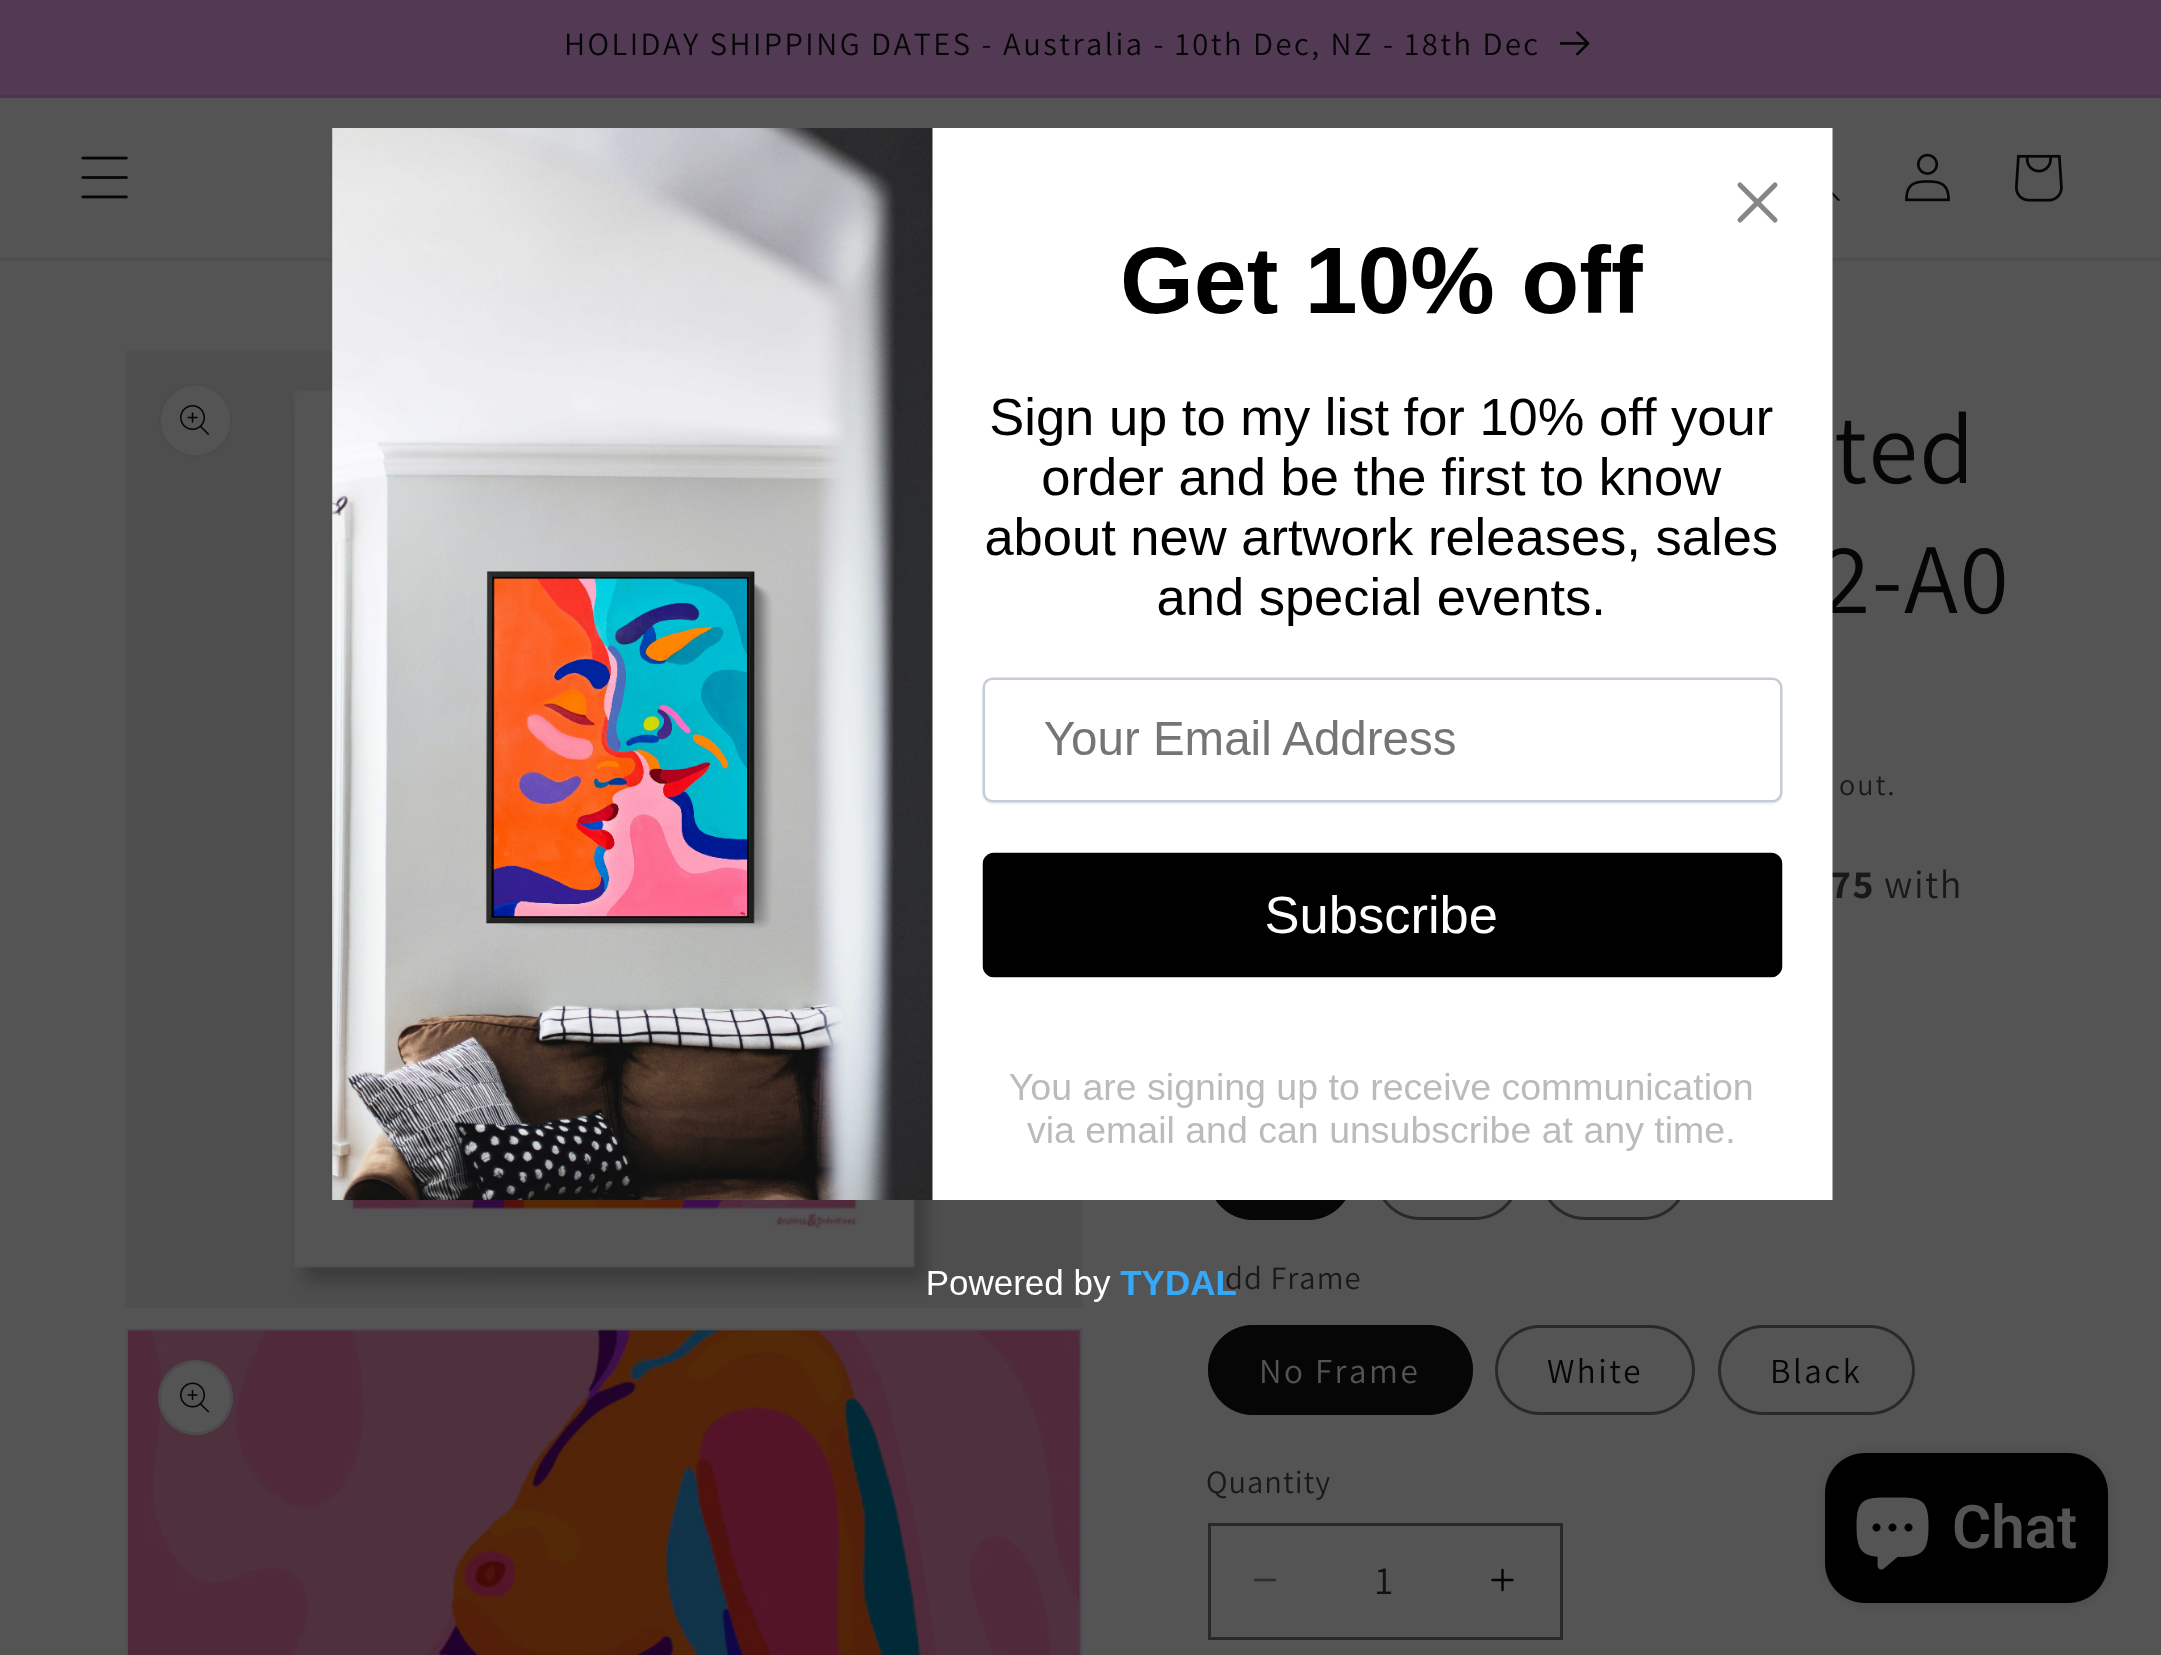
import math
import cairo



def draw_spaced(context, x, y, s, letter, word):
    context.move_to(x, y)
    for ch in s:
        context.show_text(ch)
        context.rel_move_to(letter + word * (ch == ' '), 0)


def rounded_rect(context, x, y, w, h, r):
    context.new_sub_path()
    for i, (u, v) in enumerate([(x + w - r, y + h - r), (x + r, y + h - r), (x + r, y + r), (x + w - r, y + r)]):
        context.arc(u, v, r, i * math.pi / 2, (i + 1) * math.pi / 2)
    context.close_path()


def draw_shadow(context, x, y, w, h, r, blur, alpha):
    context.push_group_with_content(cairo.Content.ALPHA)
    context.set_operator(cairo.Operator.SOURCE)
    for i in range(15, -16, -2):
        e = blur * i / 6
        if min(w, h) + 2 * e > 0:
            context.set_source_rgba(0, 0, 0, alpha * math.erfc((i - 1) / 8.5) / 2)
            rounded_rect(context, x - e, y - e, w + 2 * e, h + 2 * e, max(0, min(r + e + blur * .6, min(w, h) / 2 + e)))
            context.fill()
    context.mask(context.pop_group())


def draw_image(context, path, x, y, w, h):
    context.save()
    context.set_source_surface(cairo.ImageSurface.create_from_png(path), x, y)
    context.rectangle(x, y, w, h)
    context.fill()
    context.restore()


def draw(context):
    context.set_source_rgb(1, 1, 1)
    context.paint()
    context.set_source_rgb(249 / 255, 174 / 255, 1)
    context.rectangle(0, 0, 2161, 95)
    context.fill()
    context.set_source_rgb(231 / 255, 162 / 255, 236 / 255)
    context.rectangle(0, 95, 2161, 3)
    context.fill()
    draw_image(context, "images/2.png", 1560, 31, 30, 25)
    context.set_source_rgb(236 / 255, 236 / 255, 236 / 255)
    context.rectangle(0, 258, 2161, 3)
    context.fill()
    draw_image(context, "images/3.png", 81, 156, 47, 43)
    context.set_source_rgb(18 / 255, 18 / 255, 18 / 255)
    context.set_fill_rule(cairo.FillRule.EVEN_ODD)
    context.new_path()
    context.move_to(1823, 183)
    context.curve_to(1809, 197, 1787, 176, 1801, 162)
    context.curve_to(1815, 148, 1837, 169, 1823, 183)
    context.close_path()
    context.move_to(1824, 186)
    context.curve_to(1806, 201, 1783, 175, 1800, 160)
    context.curve_to(1816, 144, 1840, 167, 1825, 184)
    context.line_to(1840, 200)
    context.line_to(1839, 201)
    context.curve_to(1838, 202, 1826, 188, 1824, 186)
    context.close_path()
    context.fill()
    draw_image(context, "images/4.png", 1905, 153, 45, 49)
    draw_image(context, "images/5.png", 2015, 154, 48, 48)
    context.rectangle(126.5, 351.5, 955, 955)
    context.set_source_rgb(243 / 255, 243 / 255, 243 / 255)
    context.set_line_width(3)
    context.stroke()
    draw_image(context, "images/6.png", 128, 353, 952, 952)
    context.set_source_rgb(1, 1, 1)
    context.arc(195.5, 420.5, 37.5, 0, 2 * math.pi)
    context.fill()
    context.arc(195.5, 420.5, 36, 0, 2 * math.pi)
    context.set_source_rgba(18 / 255, 18 / 255, 18 / 255, 0.1)
    context.stroke()
    draw_image(context, "images/7.png", 180, 405, 29, 30)
    context.rectangle(126.5, 1329.5, 955, 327)
    context.set_source_rgb(243 / 255, 243 / 255, 243 / 255)
    context.stroke()
    draw_image(context, "images/8.png", 128, 1329, 953, 326)
    context.set_source_rgb(1, 1, 1)
    context.arc(195.5, 1397.5, 37.5, 0, 2 * math.pi)
    context.fill()
    context.arc(195.5, 1397.5, 36, 0, 2 * math.pi)
    context.set_source_rgba(18 / 255, 18 / 255, 18 / 255, 0.1)
    context.stroke()
    draw_image(context, "images/9.png", 180, 1382, 29, 31)
    context.set_source_rgb(18 / 255, 18 / 255, 18 / 255)
    rounded_rect(context, 1208, 1130, 145, 90, 45)
    context.fill()
    rounded_rect(context, 1209.5, 1131.5, 142, 87, 43.5)
    context.set_source_rgba(18 / 255, 18 / 255, 18 / 255, 0.55)
    context.stroke()
    rounded_rect(context, 1376.5, 1131.5, 142, 87, 43.5)
    context.set_source_rgb(125 / 255, 125 / 255, 125 / 255)
    context.stroke()
    rounded_rect(context, 1541.5, 1131.5, 145, 87, 43.5)
    context.stroke()
    context.set_source_rgb(18 / 255, 18 / 255, 18 / 255)
    rounded_rect(context, 1208, 1325, 265, 90, 45)
    context.fill()
    rounded_rect(context, 1209.5, 1326.5, 262, 87, 43.5)
    context.set_source_rgba(18 / 255, 18 / 255, 18 / 255, 0.55)
    context.stroke()
    rounded_rect(context, 1496.5, 1326.5, 197, 87, 43.5)
    context.set_source_rgb(125 / 255, 125 / 255, 125 / 255)
    context.stroke()
    rounded_rect(context, 1719.5, 1326.5, 194, 87, 43.5)
    context.stroke()
    draw_image(context, "images/10.png", 1253, 1578, 24, 4)
    draw_image(context, "images/11.png", 1491, 1568, 23, 24)
    context.rectangle(1209.5, 1524.5, 352, 114)
    context.stroke()
    context.set_source_rgb(0, 0, 0)
    draw_shadow(context, 1825, 1453, 283, 150, 40, 6, 0.15)
    context.set_source_rgb(0, 0, 0)
    rounded_rect(context, 1825, 1453, 283, 150, 40)
    context.fill()
    draw_image(context, "images/12.png", 1856, 1497, 73, 73)
    context.select_font_face("Assistant")
    context.set_font_size(32.5)
    context.set_source_rgb(18 / 255, 18 / 255, 18 / 255)
    draw_spaced(context, 564, 55, "HOLIDAY SHIPPING DATES - Australia - 10th Dec, NZ - 18th Dec", 2.5, 0)
    context.set_font_size(100)
    draw_spaced(context, 1834, 483, "ted", 1.5, 0)
    draw_spaced(context, 1821, 613, "2-A0", 1.5, 0)
    context.set_font_size(30)
    context.set_source_rgb(77 / 255, 77 / 255, 77 / 255)
    draw_spaced(context, 1839, 795, "out.", 2, 0)
    context.select_font_face("Assistant", cairo.FontSlant.NORMAL, cairo.FontWeight.BOLD)
    context.set_font_size(40)
    draw_spaced(context, 1830, 898, "75", 1.5, 0)
    context.select_font_face("Assistant")
    draw_spaced(context, 1884, 898, "with", 1.5, 0)
    context.set_font_size(32.5)
    draw_spaced(context, 1225, 1289, "dd Frame", 1, 0)
    context.set_font_size(35)
    context.set_source_rgb(1, 1, 1)
    draw_spaced(context, 1259, 1383, "No Frame", 2.5, 0)
    context.set_source_rgb(18 / 255, 18 / 255, 18 / 255)
    draw_spaced(context, 1547, 1383, "White", 2.5, 0)
    draw_spaced(context, 1770, 1383, "Black", 2.5, 0)
    context.set_font_size(32.5)
    context.set_source_rgb(77 / 255, 77 / 255, 77 / 255)
    draw_spaced(context, 1206, 1493, "Quantity", 1, 0)
    context.set_font_size(40)
    context.set_source_rgb(54 / 255, 54 / 255, 54 / 255)
    context.move_to(1375, 1594)
    context.show_text("1")
    context.select_font_face("Roboto SemiBold")
    context.set_font_size(60)
    context.set_source_rgb(1, 1, 1)
    context.move_to(1952, 1548)
    context.show_text("Chat")
    draw_image(context, "images/1.png", 0, 0, 2161, 1655)


surface = cairo.ImageSurface(cairo.Format.RGB24, 2161, 1655)
context = cairo.Context(surface)
options = cairo.FontOptions()
options.set_hint_metrics(cairo.HintMetrics.OFF)
options.set_hint_style(cairo.HintStyle.NONE)
context.set_font_options(options)
context.set_miter_limit(4)
draw(context)
surface.write_to_png("out.png")
